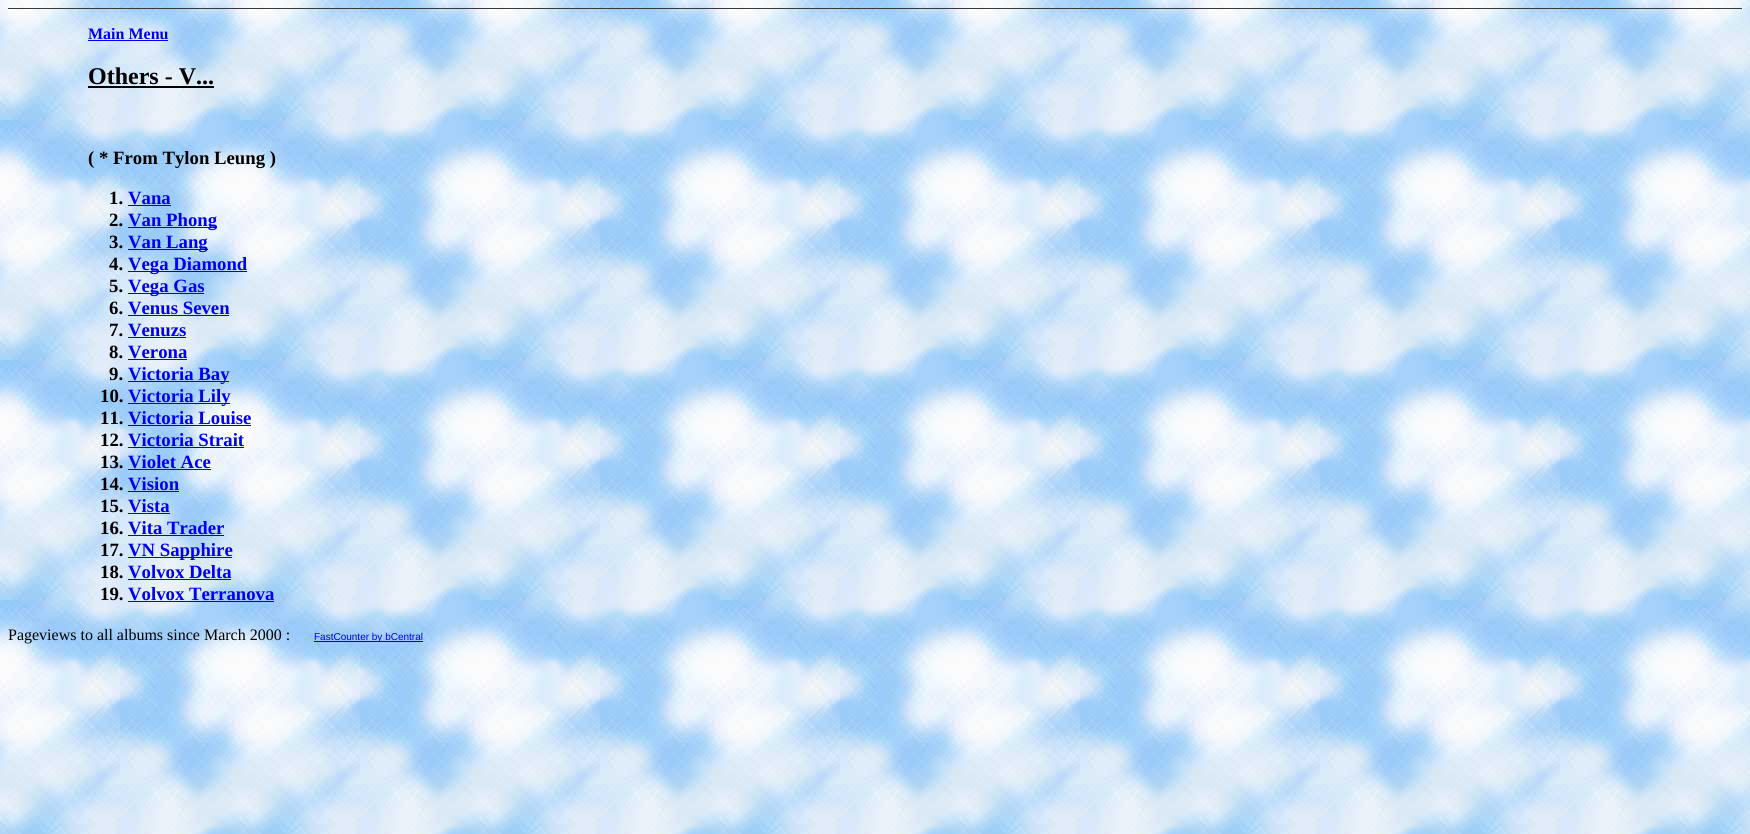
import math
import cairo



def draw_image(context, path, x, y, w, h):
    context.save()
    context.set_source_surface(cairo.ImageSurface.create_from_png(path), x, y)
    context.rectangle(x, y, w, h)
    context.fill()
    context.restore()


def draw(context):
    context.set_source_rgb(1, 1, 1)
    context.paint()
    draw_image(context, "images/1.png", 0, 0, 1750, 834)
    context.set_source_rgb(57 / 255, 57 / 255, 57 / 255)
    context.rectangle(8, 8, 1734, 1)
    context.fill()
    context.set_source_rgb(0, 0, 238 / 255)
    context.rectangle(88, 40, 80, 1)
    context.fill()
    context.set_source_rgb(0, 0, 0)
    context.rectangle(88, 86, 126, 2)
    context.fill()
    context.set_source_rgb(0, 0, 238 / 255)
    context.rectangle(128, 205, 43, 1)
    context.fill()
    context.rectangle(128, 227, 89, 1)
    context.fill()
    context.rectangle(128, 249, 80, 1)
    context.fill()
    context.rectangle(128, 271, 119, 1)
    context.fill()
    context.rectangle(128, 293, 76, 1)
    context.fill()
    context.rectangle(128, 315, 101, 1)
    context.fill()
    context.rectangle(128, 337, 58, 1)
    context.fill()
    context.rectangle(128, 359, 59, 1)
    context.fill()
    context.rectangle(128, 381, 101, 1)
    context.fill()
    context.rectangle(128, 403, 102, 1)
    context.fill()
    context.rectangle(128, 425, 123, 1)
    context.fill()
    context.rectangle(128, 447, 116, 1)
    context.fill()
    context.rectangle(128, 469, 83, 1)
    context.fill()
    context.rectangle(128, 491, 51, 1)
    context.fill()
    context.rectangle(128, 513, 42, 1)
    context.fill()
    context.rectangle(128, 535, 96, 1)
    context.fill()
    context.rectangle(128, 557, 104, 1)
    context.fill()
    context.rectangle(128, 579, 103, 1)
    context.fill()
    context.rectangle(128, 601, 146, 1)
    context.fill()
    context.rectangle(314, 641, 109, 1)
    context.fill()
    context.select_font_face("Liberation Serif", cairo.FontSlant.NORMAL, cairo.FontWeight.BOLD)
    context.set_font_size(16)
    context.move_to(88, 39)
    context.show_text("Main Menu")
    context.set_font_size(24)
    context.set_source_rgb(0, 0, 0)
    context.move_to(88, 84)
    context.show_text("Others - V...")
    context.set_font_size(18.75)
    context.move_to(88, 164)
    context.show_text("( * From Tylon Leung )")
    context.move_to(109, 204)
    context.show_text("1.")
    context.set_source_rgb(0, 0, 238 / 255)
    context.move_to(128, 204)
    context.show_text("Vana")
    context.set_source_rgb(0, 0, 0)
    context.move_to(109, 226)
    context.show_text("2.")
    context.set_source_rgb(0, 0, 238 / 255)
    context.move_to(128, 226)
    context.show_text("Van Phong")
    context.set_source_rgb(0, 0, 0)
    context.move_to(109, 248)
    context.show_text("3.")
    context.set_source_rgb(0, 0, 238 / 255)
    context.move_to(128, 248)
    context.show_text("Van Lang")
    context.set_source_rgb(0, 0, 0)
    context.move_to(109, 270)
    context.show_text("4.")
    context.set_source_rgb(0, 0, 238 / 255)
    context.move_to(128, 270)
    context.show_text("Vega Diamond")
    context.set_source_rgb(0, 0, 0)
    context.move_to(109, 292)
    context.show_text("5.")
    context.set_source_rgb(0, 0, 238 / 255)
    context.move_to(128, 292)
    context.show_text("Vega Gas")
    context.set_source_rgb(0, 0, 0)
    context.move_to(109, 314)
    context.show_text("6.")
    context.set_source_rgb(0, 0, 238 / 255)
    context.move_to(128, 314)
    context.show_text("Venus Seven")
    context.set_source_rgb(0, 0, 0)
    context.move_to(109, 336)
    context.show_text("7.")
    context.set_source_rgb(0, 0, 238 / 255)
    context.move_to(128, 336)
    context.show_text("Venuzs")
    context.set_source_rgb(0, 0, 0)
    context.move_to(109, 358)
    context.show_text("8.")
    context.set_source_rgb(0, 0, 238 / 255)
    context.move_to(128, 358)
    context.show_text("Verona")
    context.set_source_rgb(0, 0, 0)
    context.move_to(109, 380)
    context.show_text("9.")
    context.set_source_rgb(0, 0, 238 / 255)
    context.move_to(128, 380)
    context.show_text("Victoria Bay")
    context.set_source_rgb(0, 0, 0)
    context.move_to(100, 402)
    context.show_text("10.")
    context.set_source_rgb(0, 0, 238 / 255)
    context.move_to(128, 402)
    context.show_text("Victoria Lily")
    context.set_source_rgb(0, 0, 0)
    context.move_to(100, 424)
    context.show_text("11.")
    context.set_source_rgb(0, 0, 238 / 255)
    context.move_to(128, 424)
    context.show_text("Victoria Louise")
    context.set_source_rgb(0, 0, 0)
    context.move_to(100, 446)
    context.show_text("12.")
    context.set_source_rgb(0, 0, 238 / 255)
    context.move_to(128, 446)
    context.show_text("Victoria Strait")
    context.set_source_rgb(0, 0, 0)
    context.move_to(100, 468)
    context.show_text("13.")
    context.set_source_rgb(0, 0, 238 / 255)
    context.move_to(128, 468)
    context.show_text("Violet Ace")
    context.set_source_rgb(0, 0, 0)
    context.move_to(100, 490)
    context.show_text("14.")
    context.set_source_rgb(0, 0, 238 / 255)
    context.move_to(128, 490)
    context.show_text("Vision")
    context.set_source_rgb(0, 0, 0)
    context.move_to(100, 512)
    context.show_text("15.")
    context.set_source_rgb(0, 0, 238 / 255)
    context.move_to(128, 512)
    context.show_text("Vista")
    context.set_source_rgb(0, 0, 0)
    context.move_to(100, 534)
    context.show_text("16.")
    context.set_source_rgb(0, 0, 238 / 255)
    context.move_to(128, 534)
    context.show_text("Vita Trader")
    context.set_source_rgb(0, 0, 0)
    context.move_to(100, 556)
    context.show_text("17.")
    context.set_source_rgb(0, 0, 238 / 255)
    context.move_to(128, 556)
    context.show_text("VN Sapphire")
    context.set_source_rgb(0, 0, 0)
    context.move_to(100, 578)
    context.show_text("18.")
    context.set_source_rgb(0, 0, 238 / 255)
    context.move_to(128, 578)
    context.show_text("Volvox Delta")
    context.set_source_rgb(0, 0, 0)
    context.move_to(100, 600)
    context.show_text("19.")
    context.set_source_rgb(0, 0, 238 / 255)
    context.move_to(128, 600)
    context.show_text("Volvox Terranova")
    context.select_font_face("Liberation Serif")
    context.set_font_size(16)
    context.set_source_rgb(0, 0, 0)
    context.move_to(8, 640)
    context.show_text("Pageviews to all albums since March 2000 :")
    context.select_font_face("Liberation Sans")
    context.set_font_size(10)
    context.set_source_rgb(0, 0, 238 / 255)
    context.move_to(314, 640)
    context.show_text("FastCounter by bCentral")


surface = cairo.ImageSurface(cairo.Format.RGB24, 1750, 834)
context = cairo.Context(surface)
options = cairo.FontOptions()
options.set_hint_metrics(cairo.HintMetrics.OFF)
options.set_hint_style(cairo.HintStyle.NONE)
context.set_font_options(options)
context.set_miter_limit(4)
draw(context)
surface.write_to_png("out.png")
